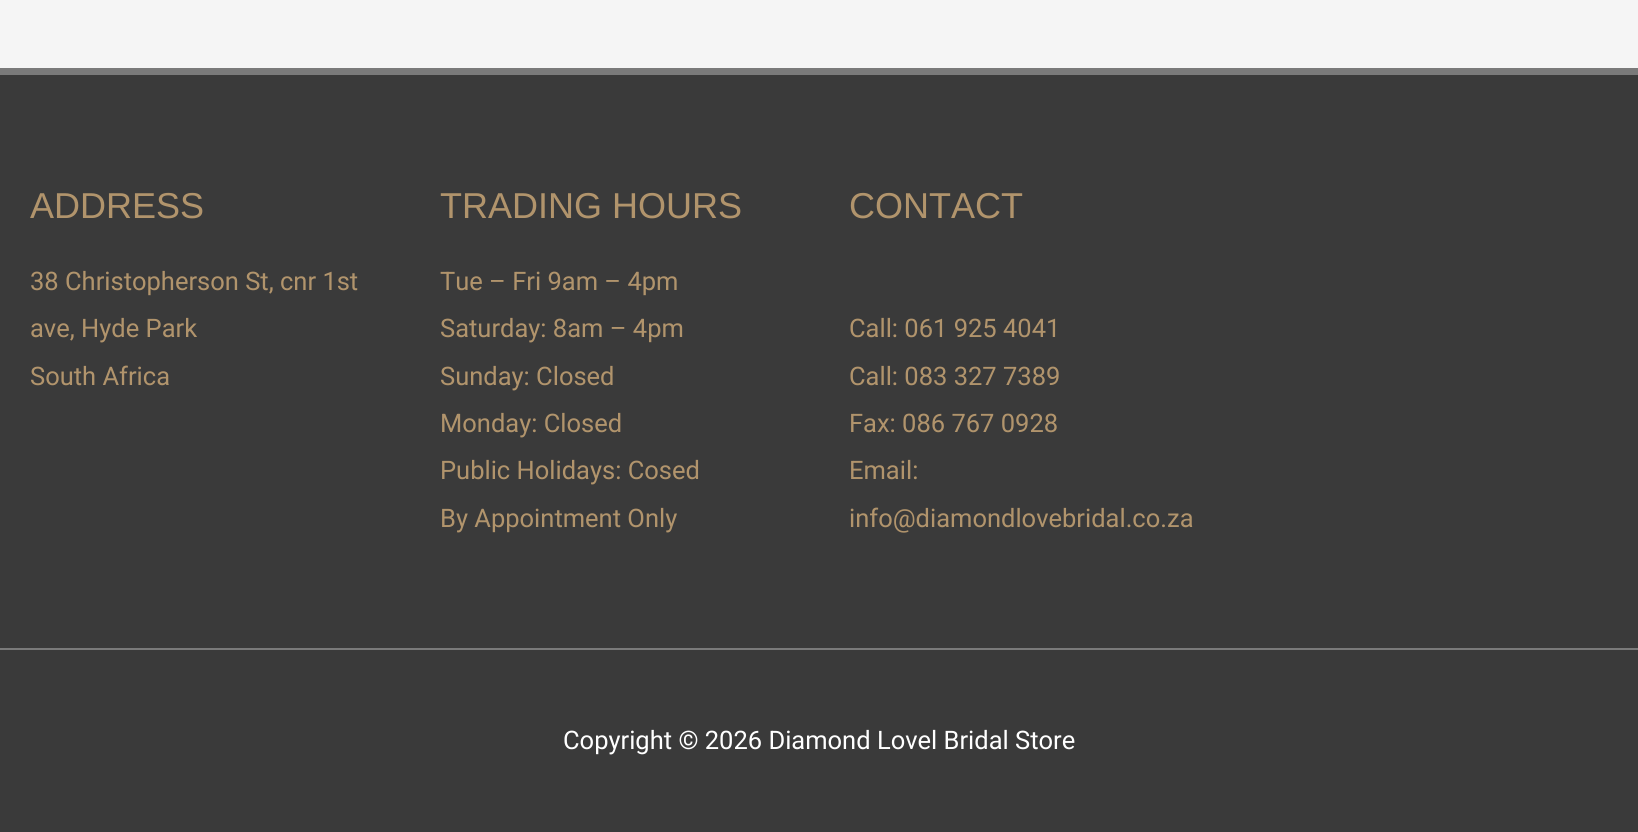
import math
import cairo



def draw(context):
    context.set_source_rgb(245 / 255, 245 / 255, 245 / 255)
    context.paint()
    context.set_source_rgb(58 / 255, 58 / 255, 58 / 255)
    context.rectangle(0, 75, 1638, 573)
    context.fill()
    context.set_source_rgb(122 / 255, 122 / 255, 122 / 255)
    context.rectangle(0, 68, 1638, 7)
    context.fill()
    context.rectangle(0, 648, 1638, 2)
    context.fill()
    context.set_source_rgb(58 / 255, 58 / 255, 58 / 255)
    context.rectangle(0, 650, 1638, 182)
    context.fill()
    context.select_font_face("Liberation Sans")
    context.set_font_size(36)
    context.set_source_rgb(177 / 255, 148 / 255, 108 / 255)
    context.move_to(30, 218)
    context.show_text("ADDRESS")
    context.select_font_face("Roboto")
    context.set_font_size(25.5)
    context.move_to(30, 290)
    context.show_text("38 Christopherson St, cnr 1st")
    context.move_to(30, 337)
    context.show_text("ave, Hyde Park")
    context.move_to(30, 385)
    context.show_text("South Africa")
    context.select_font_face("Liberation Sans")
    context.set_font_size(36)
    context.move_to(440, 218)
    context.show_text("TRADING HOURS")
    context.select_font_face("Roboto")
    context.set_font_size(25.5)
    context.move_to(440, 290)
    context.show_text("Tue – Fri 9am – 4pm")
    context.move_to(440, 337)
    context.show_text("Saturday: 8am – 4pm")
    context.move_to(440, 385)
    context.show_text("Sunday: Closed")
    context.move_to(440, 432)
    context.show_text("Monday: Closed")
    context.move_to(440, 479)
    context.show_text("Public Holidays: Cosed")
    context.move_to(440, 527)
    context.show_text("By Appointment Only")
    context.select_font_face("Liberation Sans")
    context.set_font_size(36)
    context.move_to(849, 218)
    context.show_text("CONTACT")
    context.select_font_face("Roboto")
    context.set_font_size(25.5)
    context.move_to(849, 337)
    context.show_text("Call: 061 925 4041")
    context.move_to(849, 385)
    context.show_text("Call: 083 327 7389")
    context.move_to(849, 432)
    context.show_text("Fax: 086 767 0928")
    context.move_to(849, 479)
    context.show_text("Email:")
    context.move_to(849, 527)
    context.show_text("info@diamondlovebridal.co.za")
    context.set_source_rgb(1, 1, 1)
    context.move_to(563, 749)
    context.show_text("Copyright © 2026 Diamond Lovel Bridal Store")


surface = cairo.ImageSurface(cairo.Format.RGB24, 1638, 832)
context = cairo.Context(surface)
options = cairo.FontOptions()
options.set_hint_metrics(cairo.HintMetrics.OFF)
options.set_hint_style(cairo.HintStyle.NONE)
context.set_font_options(options)
context.set_miter_limit(4)
draw(context)
surface.write_to_png("out.png")
